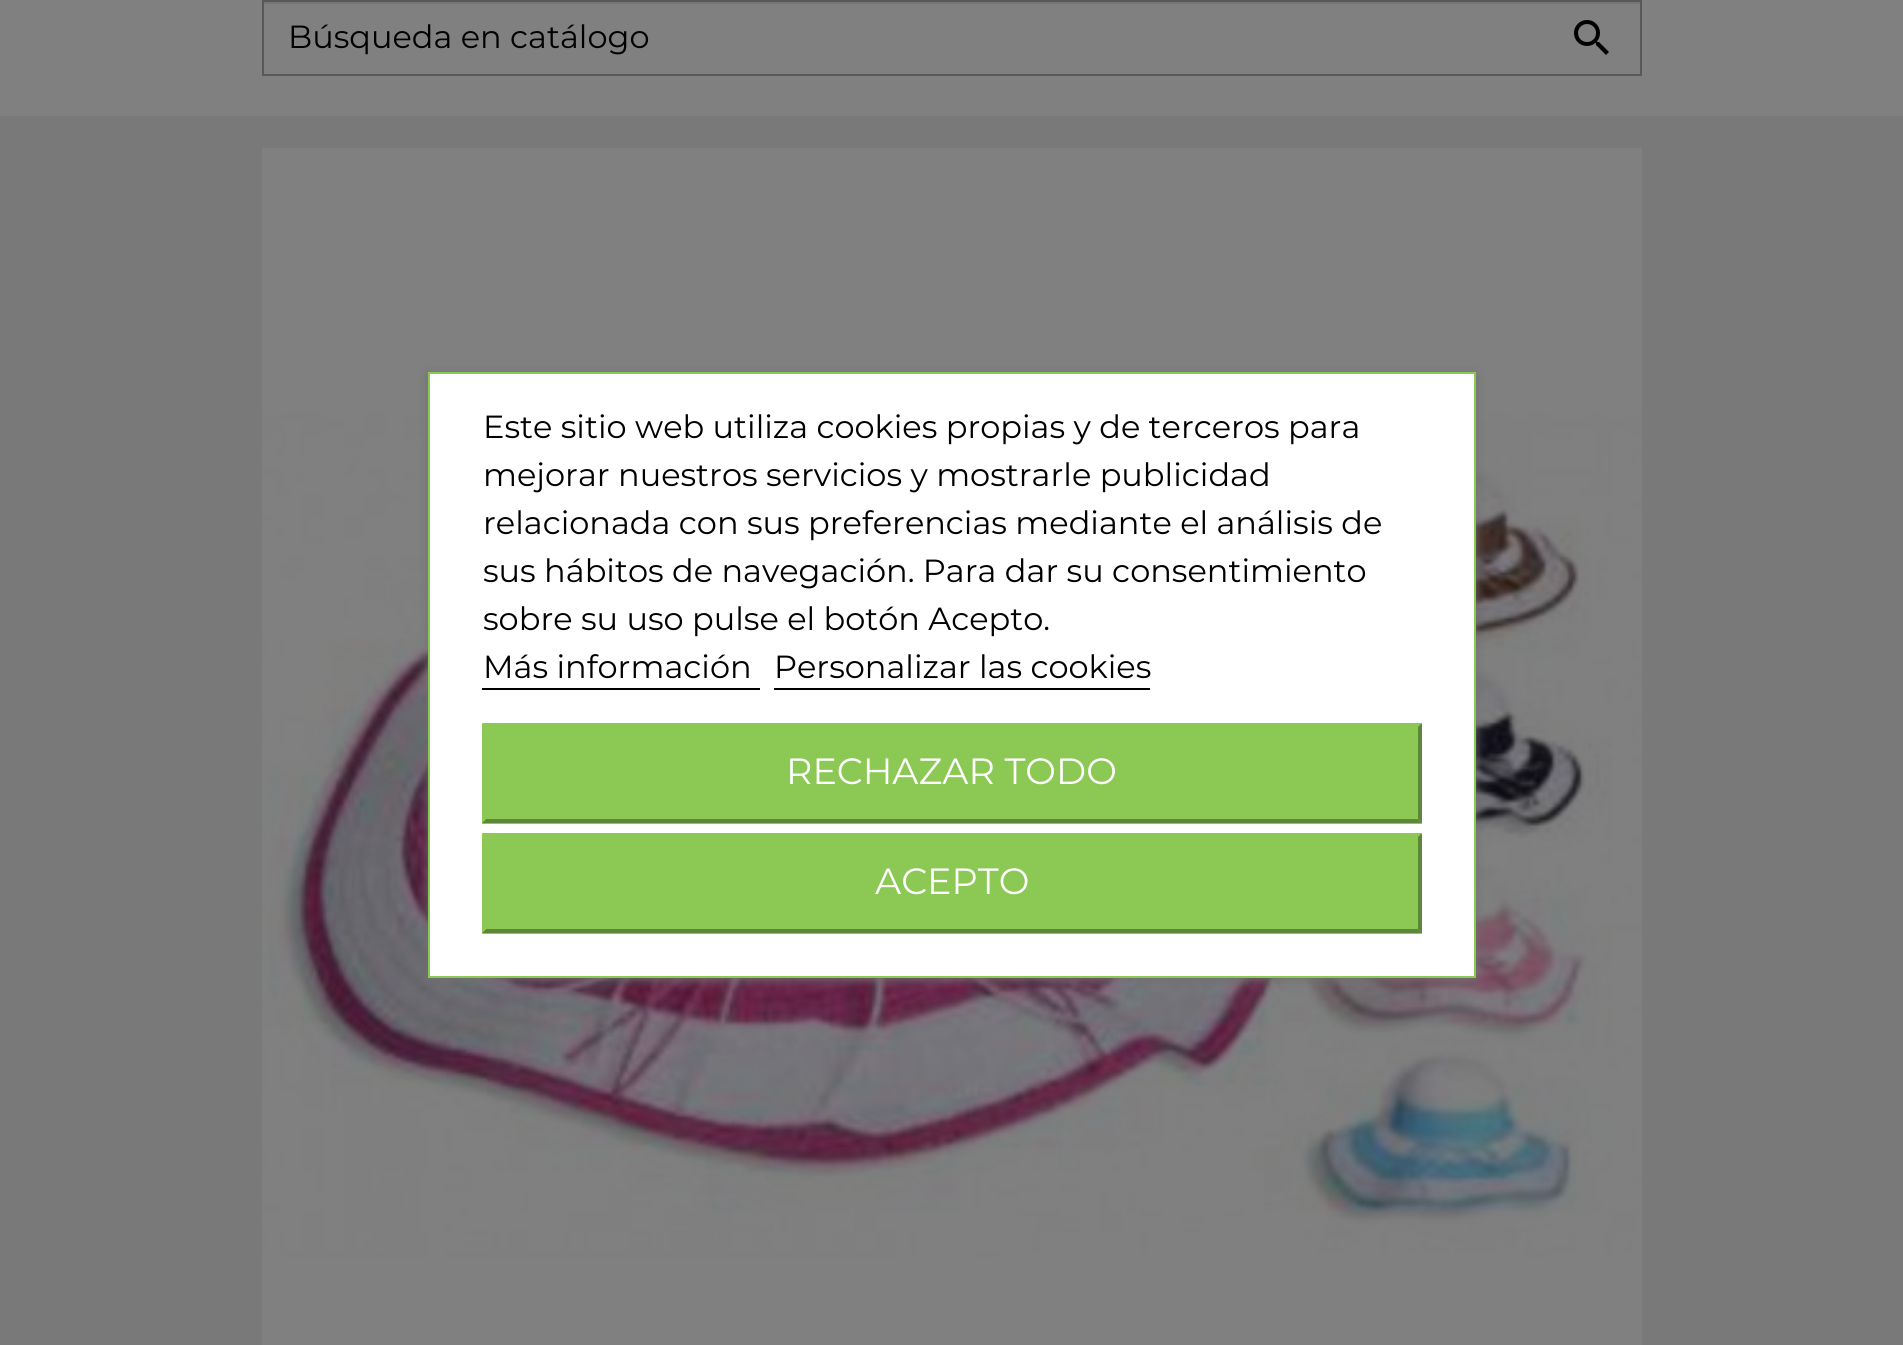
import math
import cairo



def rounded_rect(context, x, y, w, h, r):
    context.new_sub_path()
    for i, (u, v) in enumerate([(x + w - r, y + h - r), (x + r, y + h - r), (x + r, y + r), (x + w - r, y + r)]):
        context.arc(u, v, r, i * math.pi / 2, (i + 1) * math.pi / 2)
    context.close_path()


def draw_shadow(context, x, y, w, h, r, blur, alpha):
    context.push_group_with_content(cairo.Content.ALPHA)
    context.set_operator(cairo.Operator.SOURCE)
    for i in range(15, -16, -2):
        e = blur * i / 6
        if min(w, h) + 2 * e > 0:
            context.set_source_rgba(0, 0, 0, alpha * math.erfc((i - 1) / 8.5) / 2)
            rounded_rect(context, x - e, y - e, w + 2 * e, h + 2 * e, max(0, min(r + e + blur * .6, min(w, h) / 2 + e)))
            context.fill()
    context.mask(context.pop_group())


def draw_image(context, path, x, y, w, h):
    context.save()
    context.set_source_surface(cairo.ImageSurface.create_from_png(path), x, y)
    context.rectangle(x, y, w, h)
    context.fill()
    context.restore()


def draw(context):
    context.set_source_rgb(121 / 255, 121 / 255, 121 / 255)
    context.paint()
    context.set_source_rgb(128 / 255, 128 / 255, 128 / 255)
    context.rectangle(0, 0, 1903, 116)
    context.fill()
    context.set_source_rgb(118 / 255, 118 / 255, 118 / 255)
    context.rectangle(264, 2, 1376, 2)
    context.fill()
    context.rectangle(263, 1, 1378, 74)
    context.set_source_rgb(88 / 255, 88 / 255, 88 / 255)
    context.stroke()
    draw_image(context, "images/1.png", 1574, 20, 35, 35)
    draw_image(context, "images/2.png", 262, 148, 1380, 1197)
    context.set_source_rgb(112 / 255, 112 / 255, 112 / 255)
    draw_shadow(context, 428, 374, 1048, 606, 0, 5, 1)
    context.set_source_rgb(1, 1, 1)
    context.rectangle(429, 373, 1046, 604)
    context.fill_preserve()
    context.set_source_rgb(139 / 255, 201 / 255, 84 / 255)
    context.stroke()
    context.set_source_rgb(0, 0, 0)
    context.rectangle(482, 688, 278, 2)
    context.fill()
    context.rectangle(774, 688, 376, 2)
    context.fill()
    context.set_source_rgb(139 / 255, 201 / 255, 84 / 255)
    context.rectangle(482, 724, 940, 100)
    context.fill()
    context.new_path()
    context.move_to(482, 723)
    context.line_to(1422, 723)
    context.line_to(1418, 727)
    context.line_to(486, 727)
    context.close_path()
    context.fill()
    context.set_source_rgb(93 / 255, 134 / 255, 56 / 255)
    context.new_path()
    context.move_to(1422, 723)
    context.line_to(1422, 823)
    context.line_to(1418, 819)
    context.line_to(1418, 727)
    context.close_path()
    context.fill()
    context.new_path()
    context.move_to(1422, 823)
    context.line_to(482, 823)
    context.line_to(486, 819)
    context.line_to(1418, 819)
    context.close_path()
    context.fill()
    context.set_source_rgb(139 / 255, 201 / 255, 84 / 255)
    context.new_path()
    context.move_to(482, 823)
    context.line_to(482, 723)
    context.line_to(486, 727)
    context.line_to(486, 819)
    context.close_path()
    context.fill()
    context.rectangle(482, 834, 940, 100)
    context.fill()
    context.new_path()
    context.move_to(482, 833)
    context.line_to(1422, 833)
    context.line_to(1418, 837)
    context.line_to(486, 837)
    context.close_path()
    context.fill()
    context.set_source_rgb(93 / 255, 134 / 255, 56 / 255)
    context.new_path()
    context.move_to(1422, 833)
    context.line_to(1422, 933)
    context.line_to(1418, 929)
    context.line_to(1418, 837)
    context.close_path()
    context.fill()
    context.new_path()
    context.move_to(1422, 933)
    context.line_to(482, 933)
    context.line_to(486, 929)
    context.line_to(1418, 929)
    context.close_path()
    context.fill()
    context.set_source_rgb(139 / 255, 201 / 255, 84 / 255)
    context.new_path()
    context.move_to(482, 933)
    context.line_to(482, 833)
    context.line_to(486, 837)
    context.line_to(486, 929)
    context.close_path()
    context.fill()
    context.select_font_face("Montserrat")
    context.set_font_size(32)
    context.set_source_rgb(0, 0, 0)
    context.move_to(288, 48)
    context.show_text("Búsqueda en catálogo")
    context.move_to(483, 438)
    context.show_text("Este sitio web utiliza cookies propias y de terceros para")
    context.move_to(483, 486)
    context.show_text("mejorar nuestros servicios y mostrarle publicidad")
    context.move_to(483, 534)
    context.show_text("relacionada con sus preferencias mediante el análisis de")
    context.move_to(483, 582)
    context.show_text("sus hábitos de navegación. Para dar su consentimiento")
    context.move_to(483, 630)
    context.show_text("sobre su uso pulse el botón Acepto.")
    context.move_to(483, 678)
    context.show_text("Más información")
    context.move_to(774, 678)
    context.show_text("Personalizar las cookies")
    context.set_font_size(36.5)
    context.set_source_rgb(1, 1, 1)
    context.move_to(786, 784)
    context.show_text("RECHAZAR TODO")
    context.move_to(875, 894)
    context.show_text("ACEPTO")


surface = cairo.ImageSurface(cairo.Format.RGB24, 1903, 1345)
context = cairo.Context(surface)
options = cairo.FontOptions()
options.set_hint_metrics(cairo.HintMetrics.OFF)
options.set_hint_style(cairo.HintStyle.NONE)
context.set_font_options(options)
context.set_miter_limit(4)
draw(context)
surface.write_to_png("out.png")
